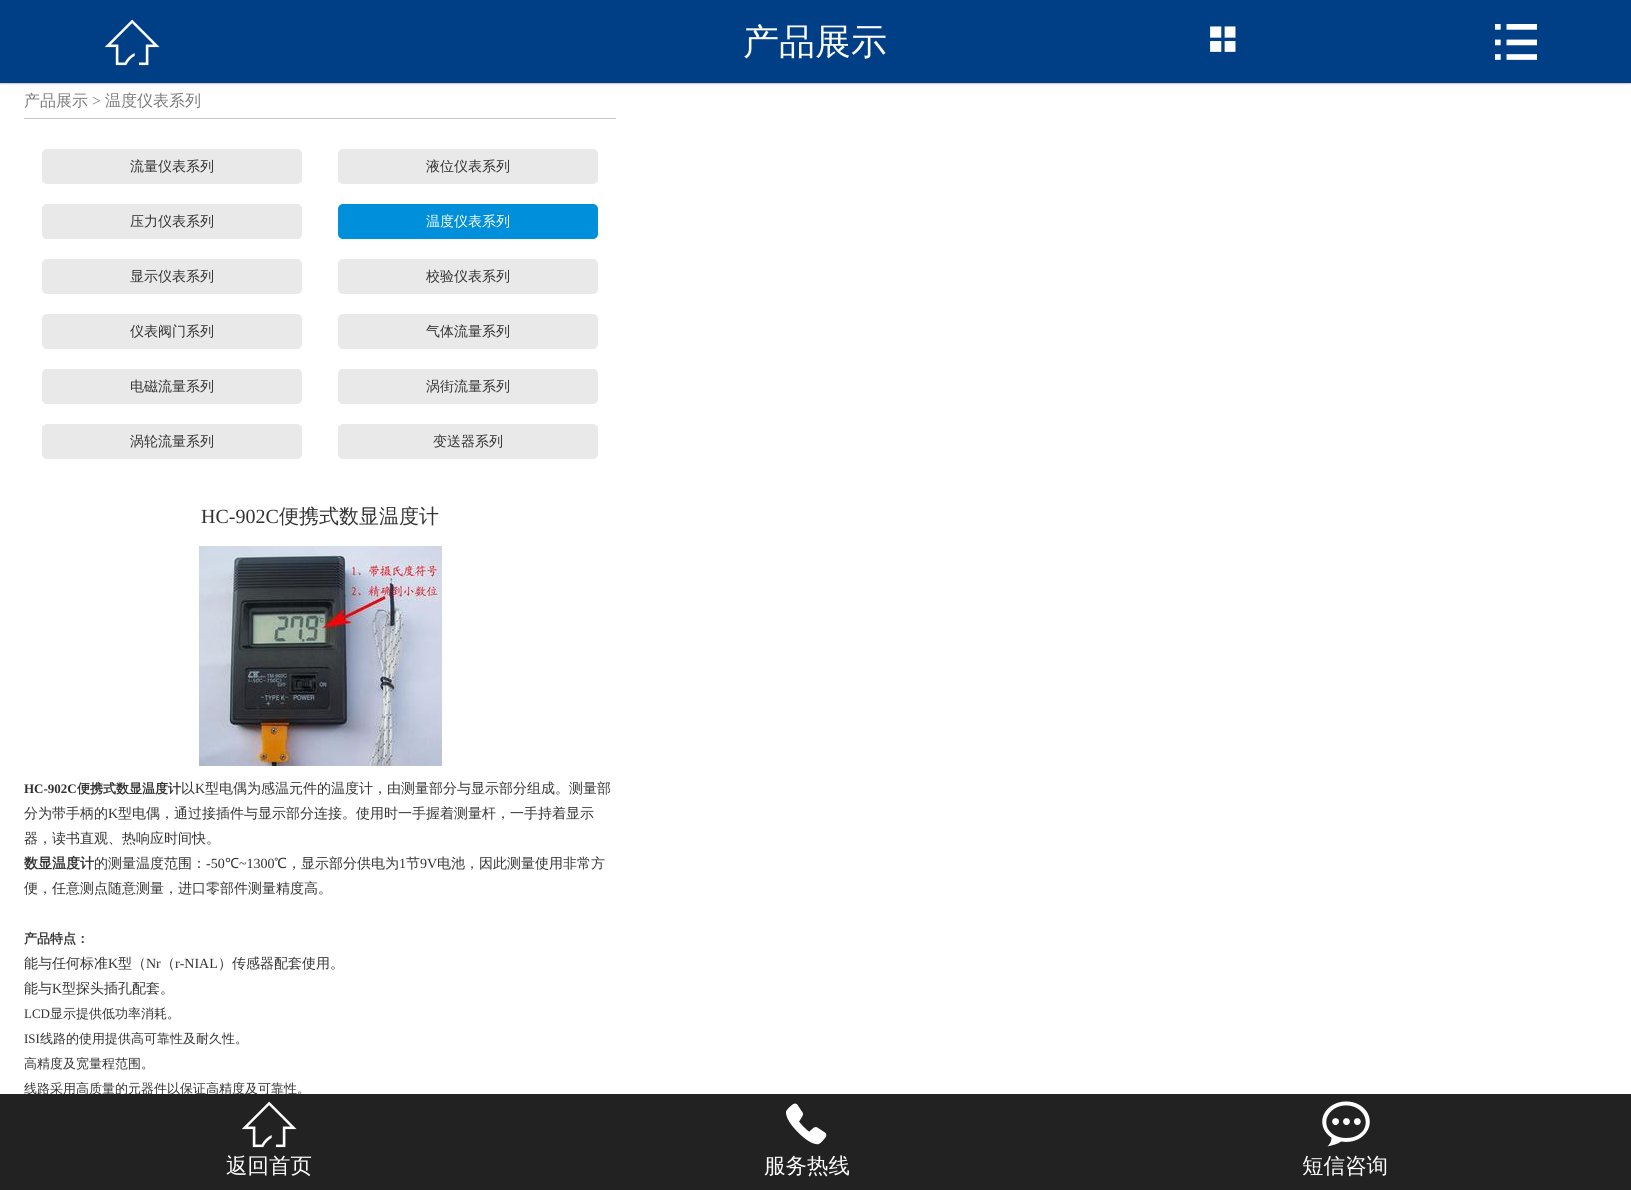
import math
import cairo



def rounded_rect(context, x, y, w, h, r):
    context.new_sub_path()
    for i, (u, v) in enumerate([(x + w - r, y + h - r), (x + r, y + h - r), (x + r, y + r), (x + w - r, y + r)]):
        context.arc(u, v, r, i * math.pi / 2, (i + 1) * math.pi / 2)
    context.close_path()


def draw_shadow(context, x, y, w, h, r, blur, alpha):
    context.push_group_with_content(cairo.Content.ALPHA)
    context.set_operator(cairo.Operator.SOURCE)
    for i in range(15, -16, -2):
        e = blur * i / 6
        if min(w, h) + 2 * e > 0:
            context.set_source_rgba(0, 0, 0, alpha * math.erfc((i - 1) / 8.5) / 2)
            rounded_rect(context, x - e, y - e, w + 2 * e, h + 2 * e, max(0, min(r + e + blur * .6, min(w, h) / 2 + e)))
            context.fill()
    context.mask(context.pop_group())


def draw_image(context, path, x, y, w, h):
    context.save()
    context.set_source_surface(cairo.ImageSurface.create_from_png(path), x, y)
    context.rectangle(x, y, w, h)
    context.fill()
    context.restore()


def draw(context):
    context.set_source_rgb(1, 1, 1)
    context.paint()
    context.set_source_rgb(9 / 255, 2 / 255, 4 / 255)
    draw_shadow(context, 0, 0, 1631, 83, 0, 1, 0.55)
    context.set_source_rgb(0, 63 / 255, 134 / 255)
    context.rectangle(0, 0, 1631, 83)
    context.fill()
    draw_image(context, "images/1.png", 104, 19, 56, 47)
    draw_image(context, "images/2.png", 1210, 26, 26, 26)
    draw_image(context, "images/3.png", 1495, 24, 42, 36)
    context.set_source_rgb(201 / 255, 201 / 255, 201 / 255)
    context.rectangle(24, 118, 592, 1)
    context.fill()
    context.set_source_rgb(233 / 255, 233 / 255, 233 / 255)
    rounded_rect(context, 42, 149, 260, 35, 5)
    context.fill()
    rounded_rect(context, 338, 149, 260, 35, 5)
    context.fill()
    rounded_rect(context, 42, 204, 260, 35, 5)
    context.fill()
    context.set_source_rgb(0, 144 / 255, 219 / 255)
    rounded_rect(context, 338, 204, 260, 35, 5)
    context.fill()
    context.set_source_rgb(233 / 255, 233 / 255, 233 / 255)
    rounded_rect(context, 42, 259, 260, 35, 5)
    context.fill()
    rounded_rect(context, 338, 259, 260, 35, 5)
    context.fill()
    rounded_rect(context, 42, 314, 260, 35, 5)
    context.fill()
    rounded_rect(context, 338, 314, 260, 35, 5)
    context.fill()
    rounded_rect(context, 42, 369, 260, 35, 5)
    context.fill()
    rounded_rect(context, 338, 369, 260, 35, 5)
    context.fill()
    rounded_rect(context, 42, 424, 260, 35, 5)
    context.fill()
    rounded_rect(context, 338, 424, 260, 35, 5)
    context.fill()
    draw_image(context, "images/4.png", 199, 546, 243, 220)
    context.select_font_face("WenQuanYi Zen Hei Medium")
    context.set_font_size(36)
    context.set_source_rgb(1, 1, 1)
    context.move_to(743, 54)
    context.show_text("产品展示")
    context.set_font_size(16)
    context.set_source_rgb(123 / 255, 123 / 255, 123 / 255)
    context.move_to(24, 106)
    context.show_text("产品展示")
    context.select_font_face("Liberation Serif")
    context.move_to(92, 106)
    context.show_text(">")
    context.select_font_face("WenQuanYi Zen Hei Medium")
    context.move_to(105, 106)
    context.show_text("温度仪表系列")
    context.set_font_size(14)
    context.set_source_rgb(51 / 255, 51 / 255, 51 / 255)
    context.move_to(130, 171)
    context.show_text("流量仪表系列")
    context.move_to(426, 171)
    context.show_text("液位仪表系列")
    context.move_to(130, 226)
    context.show_text("压力仪表系列")
    context.set_source_rgb(1, 1, 1)
    context.move_to(426, 226)
    context.show_text("温度仪表系列")
    context.set_source_rgb(51 / 255, 51 / 255, 51 / 255)
    context.move_to(130, 281)
    context.show_text("显示仪表系列")
    context.move_to(426, 281)
    context.show_text("校验仪表系列")
    context.move_to(130, 336)
    context.show_text("仪表阀门系列")
    context.move_to(426, 336)
    context.show_text("气体流量系列")
    context.move_to(130, 391)
    context.show_text("电磁流量系列")
    context.move_to(426, 391)
    context.show_text("涡街流量系列")
    context.move_to(130, 446)
    context.show_text("涡轮流量系列")
    context.move_to(433, 446)
    context.show_text("变送器系列")
    context.select_font_face("Liberation Serif")
    context.set_font_size(20)
    context.move_to(201, 523)
    context.show_text("HC-902C")
    context.select_font_face("WenQuanYi Zen Hei Medium")
    context.move_to(279, 523)
    context.show_text("便携式数显温度计")
    context.select_font_face("Liberation Serif", cairo.FontSlant.NORMAL, cairo.FontWeight.BOLD)
    context.set_font_size(13)
    context.move_to(24, 793)
    context.show_text("HC-902C")
    context.select_font_face("WenQuanYi Zen Hei", cairo.FontSlant.NORMAL, cairo.FontWeight.BOLD)
    context.move_to(77, 793)
    context.show_text("便携式数显温度计")
    context.select_font_face("WenQuanYi Zen Hei Medium")
    context.set_font_size(14)
    context.move_to(181, 793)
    context.show_text("以")
    context.select_font_face("Liberation Serif")
    context.move_to(195, 793)
    context.show_text("K")
    context.select_font_face("WenQuanYi Zen Hei Medium")
    context.move_to(205, 793)
    context.show_text("型电偶为感温元件的温度计，由测量部分与显示部分组成。测量部")
    context.move_to(24, 818)
    context.show_text("分为带手柄的")
    context.select_font_face("Liberation Serif")
    context.move_to(108, 818)
    context.show_text("K")
    context.select_font_face("WenQuanYi Zen Hei Medium")
    context.move_to(118, 818)
    context.show_text("型电偶，通过接插件与显示部分连接。使用时一手握着测量杆，一手持着显示")
    context.move_to(24, 843)
    context.show_text("器，读书直观、热响应时间快。")
    context.select_font_face("WenQuanYi Zen Hei", cairo.FontSlant.NORMAL, cairo.FontWeight.BOLD)
    context.move_to(24, 868)
    context.show_text("数显温度计")
    context.select_font_face("WenQuanYi Zen Hei Medium")
    context.move_to(94, 868)
    context.show_text("的测量温度范围：")
    context.select_font_face("Liberation Serif")
    context.move_to(206, 868)
    context.show_text("-50")
    context.select_font_face("Noto Sans")
    context.move_to(225, 868)
    context.show_text("℃")
    context.select_font_face("Liberation Serif")
    context.move_to(239, 868)
    context.show_text("~1300")
    context.select_font_face("WenQuanYi Zen Hei Medium")
    context.move_to(274, 868)
    context.show_text("℃，显示部分供电为")
    context.select_font_face("Liberation Serif")
    context.move_to(399, 868)
    context.show_text("1")
    context.select_font_face("WenQuanYi Zen Hei Medium")
    context.move_to(406, 868)
    context.show_text("节")
    context.select_font_face("Liberation Serif")
    context.move_to(420, 868)
    context.show_text("9V")
    context.select_font_face("WenQuanYi Zen Hei Medium")
    context.move_to(437, 868)
    context.show_text("电池，因此测量使用非常方")
    context.move_to(24, 893)
    context.show_text("便，任意测点随意测量，进口零部件测量精度高。")
    context.select_font_face("WenQuanYi Zen Hei", cairo.FontSlant.NORMAL, cairo.FontWeight.BOLD)
    context.set_font_size(13)
    context.move_to(24, 943)
    context.show_text("产品特点：")
    context.select_font_face("WenQuanYi Zen Hei Medium")
    context.set_font_size(14)
    context.move_to(24, 968)
    context.show_text("能与任何标准")
    context.select_font_face("Liberation Serif")
    context.move_to(108, 968)
    context.show_text("K")
    context.select_font_face("WenQuanYi Zen Hei Medium")
    context.move_to(118, 968)
    context.show_text("型（")
    context.select_font_face("Liberation Serif")
    context.move_to(146, 968)
    context.show_text("Nr")
    context.select_font_face("WenQuanYi Zen Hei Medium")
    context.move_to(161, 968)
    context.show_text("（")
    context.select_font_face("Liberation Serif")
    context.move_to(175, 968)
    context.show_text("r-NIAL")
    context.select_font_face("WenQuanYi Zen Hei Medium")
    context.move_to(218, 968)
    context.show_text("）传感器配套使用。")
    context.move_to(24, 993)
    context.show_text("能与")
    context.select_font_face("Liberation Serif")
    context.move_to(52, 993)
    context.show_text("K")
    context.select_font_face("WenQuanYi Zen Hei Medium")
    context.move_to(62, 993)
    context.show_text("型探头插孔配套。")
    context.select_font_face("Liberation Serif")
    context.set_font_size(13)
    context.move_to(24, 1018)
    context.show_text("LCD")
    context.select_font_face("WenQuanYi Zen Hei Medium")
    context.move_to(50, 1018)
    context.show_text("显示提供低功率消耗。")
    context.select_font_face("Liberation Serif")
    context.move_to(24, 1043)
    context.show_text("ISI")
    context.select_font_face("WenQuanYi Zen Hei Medium")
    context.move_to(40, 1043)
    context.show_text("线路的使用提供高可靠性及耐久性。")
    context.move_to(24, 1068)
    context.show_text("高精度及宽量程范围。")
    context.move_to(24, 1093)
    context.show_text("线路采用高质量的元器件以保证高精度及可靠性。")
    context.set_source_rgb(34 / 255, 34 / 255, 34 / 255)
    context.rectangle(0, 1094, 1631, 96)
    context.fill()
    draw_image(context, "images/5.png", 241, 1101, 56, 47)
    context.set_font_size(21.5)
    context.set_source_rgb(1, 1, 1)
    context.move_to(226, 1173)
    context.show_text("返回首页")
    draw_image(context, "images/6.png", 786, 1103, 41, 42)
    context.move_to(764, 1173)
    context.show_text("服务热线")
    draw_image(context, "images/7.png", 1322, 1101, 48, 46)
    context.move_to(1302, 1173)
    context.show_text("短信咨询")


surface = cairo.ImageSurface(cairo.Format.RGB24, 1631, 1190)
context = cairo.Context(surface)
options = cairo.FontOptions()
options.set_hint_metrics(cairo.HintMetrics.OFF)
options.set_hint_style(cairo.HintStyle.NONE)
context.set_font_options(options)
context.set_miter_limit(4)
draw(context)
surface.write_to_png("out.png")
